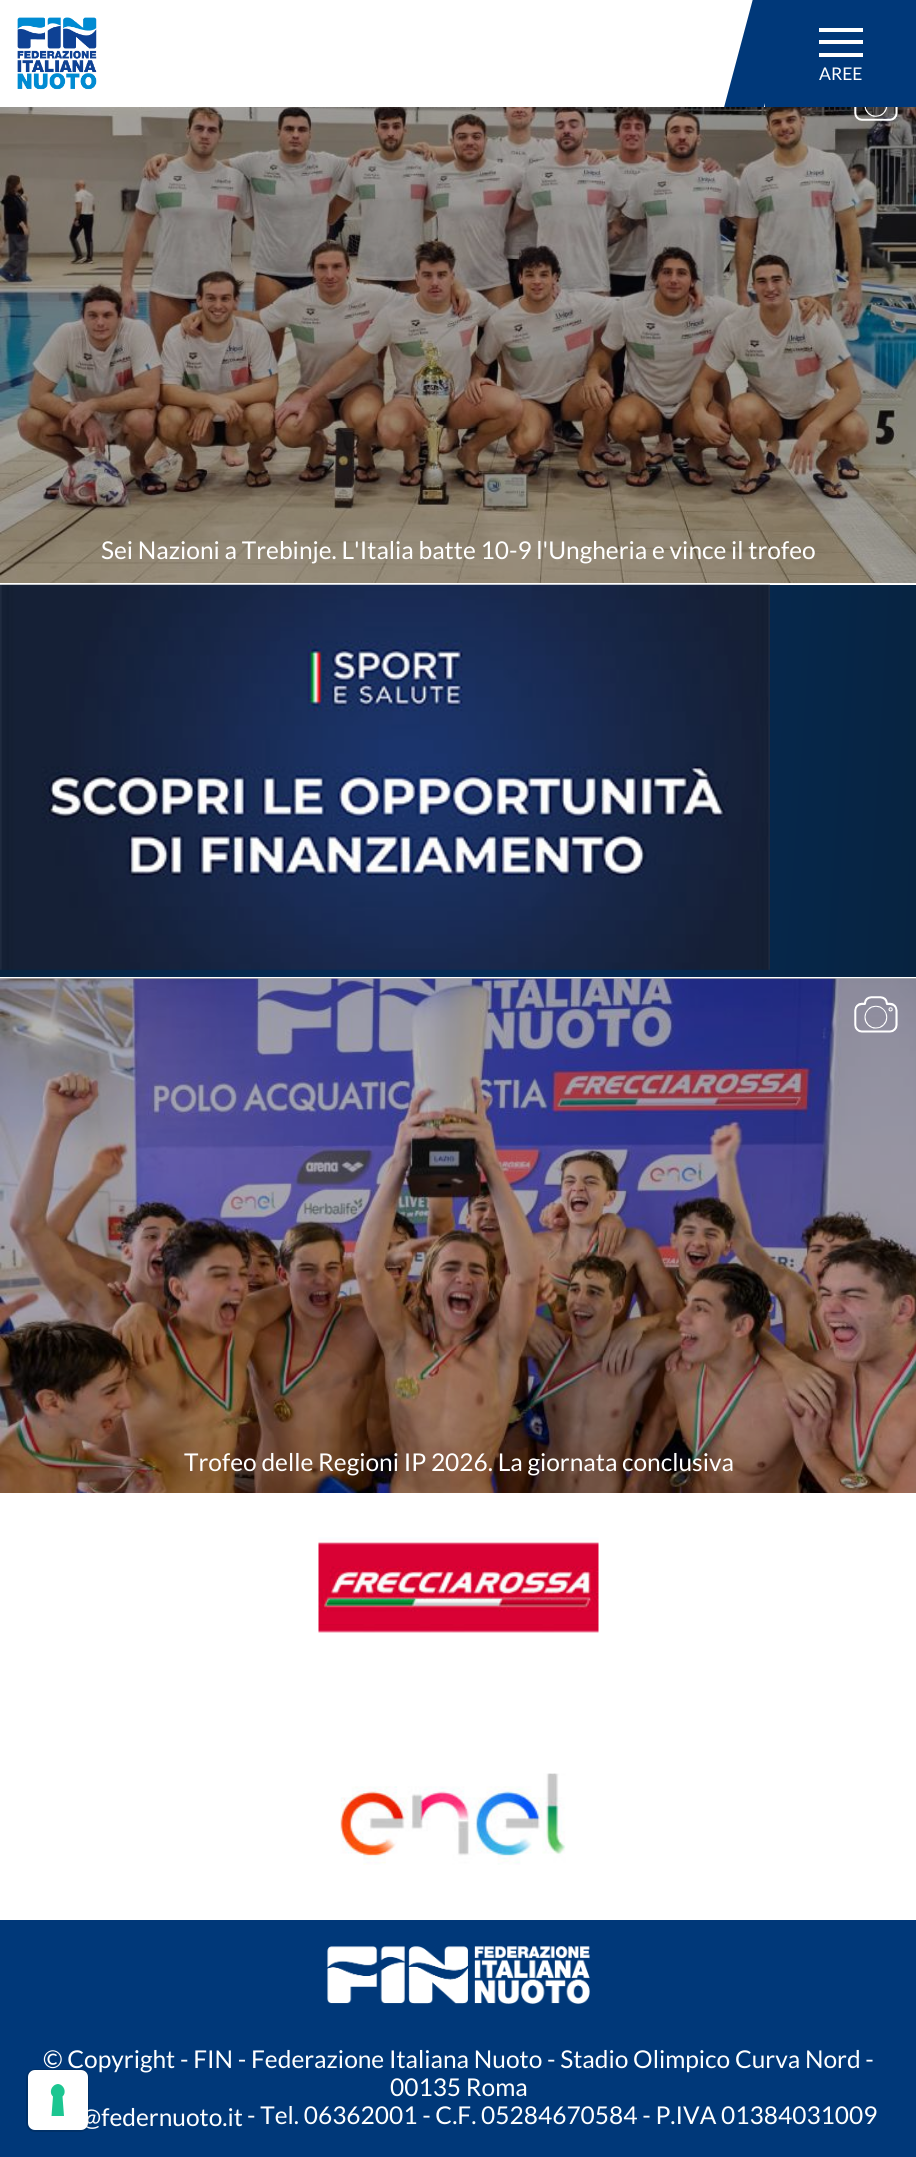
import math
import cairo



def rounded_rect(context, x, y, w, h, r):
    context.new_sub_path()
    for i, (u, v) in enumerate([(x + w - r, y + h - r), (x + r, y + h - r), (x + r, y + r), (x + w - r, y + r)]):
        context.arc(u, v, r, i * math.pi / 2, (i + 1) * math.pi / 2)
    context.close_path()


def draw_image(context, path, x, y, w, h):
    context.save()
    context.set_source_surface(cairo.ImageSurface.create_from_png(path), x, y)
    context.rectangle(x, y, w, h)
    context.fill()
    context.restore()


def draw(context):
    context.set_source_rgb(1, 1, 1)
    context.paint()
    gradient = cairo.RadialGradient(0, 0, 0, 0, 0, 1)
    gradient.set_matrix(cairo.Matrix(1 / 648, 0, 0, 1 / 8816, -1 * 459 / 648, -1 * -4076 / 8816))
    gradient.add_color_stop_rgba(0, 0, 56 / 255, 121 / 255, 1)
    gradient.add_color_stop_rgba(1, 8 / 255, 33 / 255, 58 / 255, 1)
    context.set_source(gradient)
    context.rectangle(0, 585, 916, 392)
    context.fill()
    draw_image(context, "images/1.png", 17, 17, 80, 73)
    context.set_source_rgb(0, 56 / 255, 121 / 255)
    context.rectangle(765, 0, 151, 107)
    context.fill()
    context.save()
    context.rectangle(0, 0, 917, 107)
    context.clip()
    context.new_path()
    context.move_to(758, -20)
    context.line_to(796, -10)
    context.line_to(759, 125)
    context.line_to(722, 115)
    context.close_path()
    context.fill()
    context.restore()
    context.set_source_rgb(1, 1, 1)
    context.rectangle(819, 28, 44, 4)
    context.fill()
    context.rectangle(819, 40, 44, 4)
    context.fill()
    context.rectangle(819, 53, 44, 4)
    context.fill()
    draw_image(context, "images/2.png", 0, 107, 916, 476)
    draw_image(context, "images/3.png", 854, 107, 44, 14)
    context.set_source_rgb(179 / 255, 179 / 255, 179 / 255)
    context.rectangle(0, 978, 916, 1)
    context.fill()
    draw_image(context, "images/4.png", 0, 584, 770, 386)
    draw_image(context, "images/5.png", 0, 978, 916, 515)
    draw_image(context, "images/6.png", 854, 996, 44, 37)
    draw_image(context, "images/7.png", 318, 1537, 281, 96)
    draw_image(context, "images/8.png", 340, 1773, 226, 92)
    context.set_source_rgb(0, 56 / 255, 121 / 255)
    context.rectangle(0, 1920, 916, 237)
    context.fill()
    draw_image(context, "images/9.png", 327, 1946, 263, 58)
    context.select_font_face("Lato")
    context.set_font_size(17.5)
    context.set_source_rgb(1, 1, 1)
    context.move_to(819, 80)
    context.show_text("AREE")
    context.set_font_size(24.5)
    context.move_to(101, 559)
    context.show_text("Sei Nazioni a Trebinje. L'Italia batte 10-9 l'Ungheria e vince il trofeo")
    context.move_to(184, 1471)
    context.show_text("Trofeo delle Regioni IP 2026. La giornata conclusiva")
    context.move_to(43, 2068)
    context.show_text("© Copyright - FIN - Federazione Italiana Nuoto - Stadio Olimpico Curva Nord -")
    context.move_to(390, 2096)
    context.show_text("00135 Roma")
    context.move_to(81, 2126)
    context.show_text("@federnuoto.it")
    context.move_to(247, 2124)
    context.show_text("- Tel. 06362001 - C.F. 05284670584 - P.IVA 01384031009")
    rounded_rect(context, 27, 2070, 61, 61, 8)
    context.set_source_rgba(0, 0, 0, 0.15)
    context.stroke()
    context.set_source_rgb(1, 1, 1)
    rounded_rect(context, 28, 2070, 60, 60, 7)
    context.fill()
    context.set_source_rgb(28 / 255, 198 / 255, 145 / 255)
    context.set_fill_rule(cairo.FillRule.EVEN_ODD)
    context.new_path()
    context.move_to(58, 2084)
    context.curve_to(64, 2084.5, 67, 2092.5, 62.5, 2096.5)
    context.line_to(64, 2116)
    context.line_to(51.5, 2116)
    context.line_to(53, 2096.5)
    context.curve_to(48.5, 2092.5, 51.5, 2084.5, 58, 2084)
    context.close_path()
    context.fill()


surface = cairo.ImageSurface(cairo.Format.RGB24, 916, 2157)
context = cairo.Context(surface)
options = cairo.FontOptions()
options.set_hint_metrics(cairo.HintMetrics.OFF)
options.set_hint_style(cairo.HintStyle.NONE)
context.set_font_options(options)
context.set_miter_limit(4)
draw(context)
surface.write_to_png("out.png")
